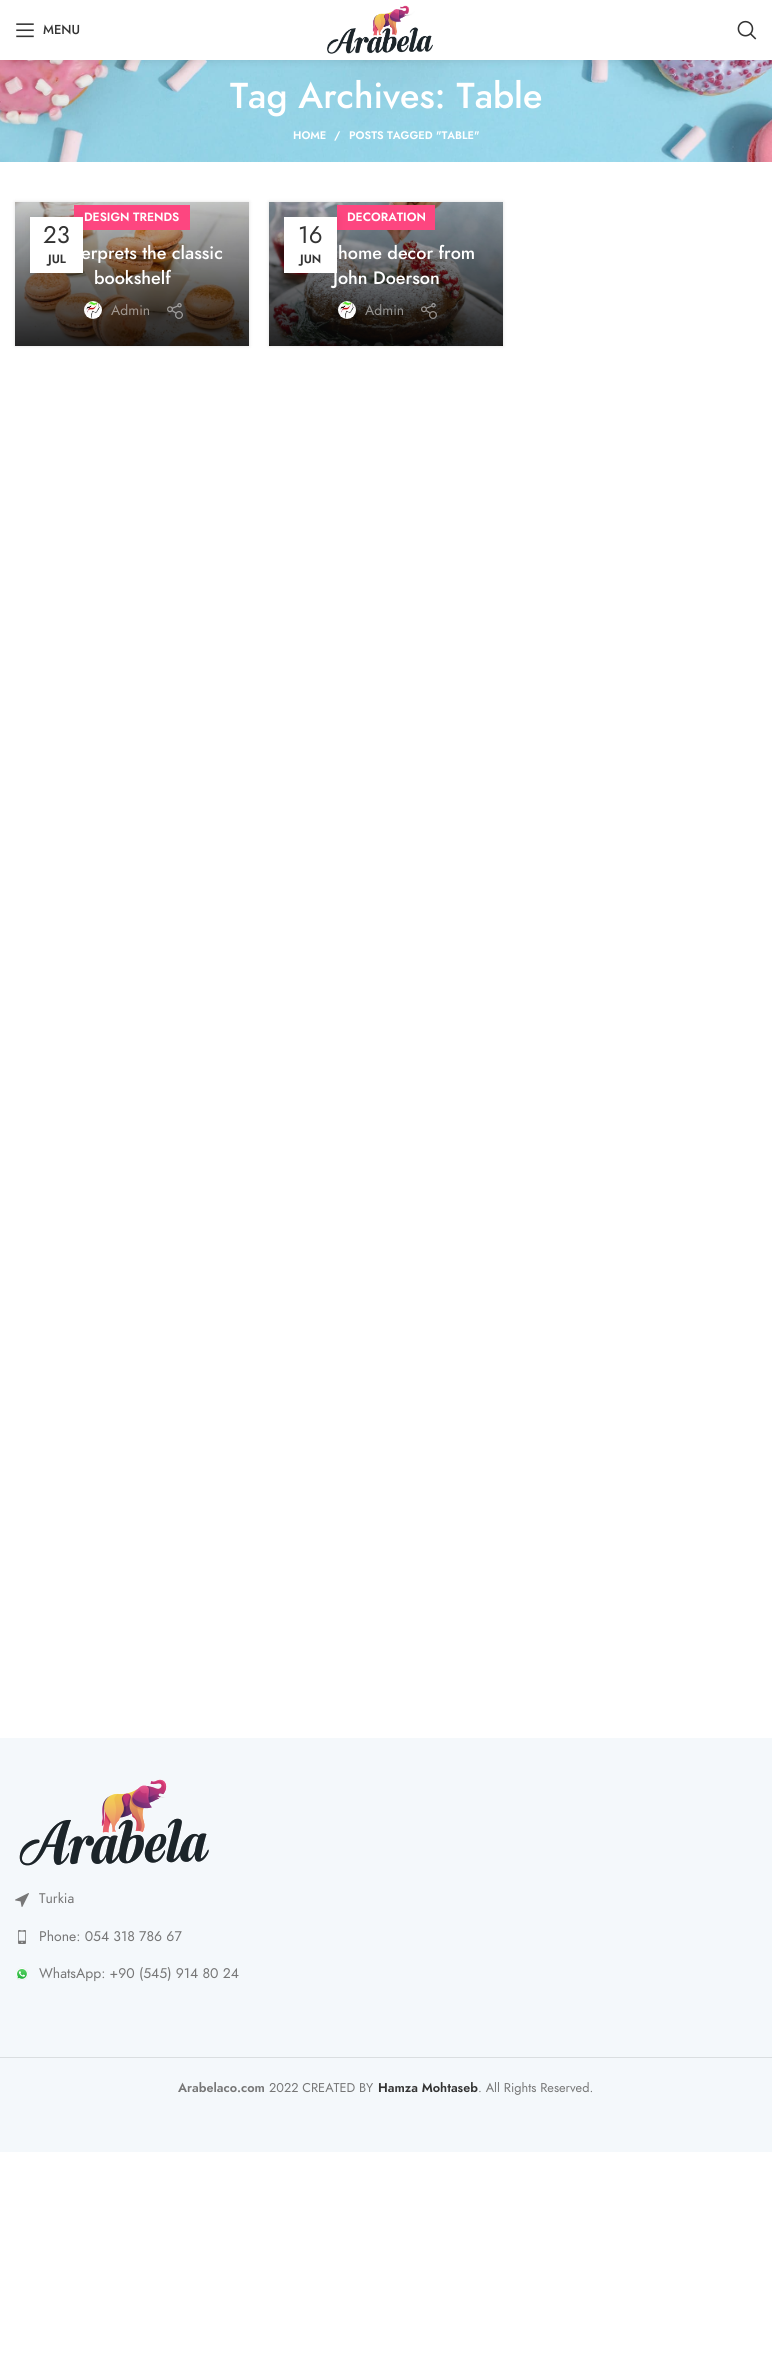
import math
import cairo



def rounded_rect(context, x, y, w, h, r):
    context.new_sub_path()
    for i, (u, v) in enumerate([(x + w - r, y + h - r), (x + r, y + h - r), (x + r, y + r), (x + w - r, y + r)]):
        context.arc(u, v, r, i * math.pi / 2, (i + 1) * math.pi / 2)
    context.close_path()


def draw_shadow(context, x, y, w, h, r, blur, alpha):
    context.push_group_with_content(cairo.Content.ALPHA)
    context.set_operator(cairo.Operator.SOURCE)
    for i in range(15, -16, -2):
        e = blur * i / 6
        if min(w, h) + 2 * e > 0:
            context.set_source_rgba(0, 0, 0, alpha * math.erfc((i - 1) / 8.5) / 2)
            rounded_rect(context, x - e, y - e, w + 2 * e, h + 2 * e, max(0, min(r + e + blur * .6, min(w, h) / 2 + e)))
            context.fill()
    context.mask(context.pop_group())


def draw_image(context, path, x, y, w, h):
    context.save()
    context.set_source_surface(cairo.ImageSurface.create_from_png(path), x, y)
    context.rectangle(x, y, w, h)
    context.fill()
    context.restore()


def draw(context):
    context.set_source_rgb(1, 1, 1)
    context.paint()
    draw_image(context, "images/4.png", 0, 60, 772, 102)
    context.set_source_rgb(0, 0, 0)
    draw_shadow(context, 0, 1, 772, 60, 0, 4, 0.1)
    context.set_source_rgb(1, 1, 1)
    context.rectangle(0, 0, 772, 60)
    context.fill()
    draw_image(context, "images/1.png", 16, 23, 18, 15)
    draw_image(context, "images/2.png", 327, 5, 106, 49)
    draw_image(context, "images/3.png", 737, 20, 20, 20)
    context.set_source_rgb(0, 0, 0)
    draw_shadow(context, 15, 202, 234, 144, 0, 2, 0.12)
    draw_image(context, "images/5.png", 15, 202, 234, 144)
    context.set_source_rgb(253 / 255, 70 / 255, 128 / 255)
    context.rectangle(74, 205, 116, 25)
    context.fill()
    context.set_source_rgb(0, 0, 0)
    draw_shadow(context, 30, 217, 53, 56, 0, 4.5, 0.1)
    context.set_source_rgb(1, 1, 1)
    context.rectangle(30, 217, 53, 56)
    context.fill()
    draw_image(context, "images/6.png", 84, 301, 18, 18)
    draw_image(context, "images/7.png", 167, 303, 16, 16)
    context.set_source_rgb(0, 0, 0)
    draw_shadow(context, 269, 202, 234, 144, 0, 2, 0.12)
    draw_image(context, "images/8.png", 269, 202, 234, 144)
    context.set_source_rgb(253 / 255, 70 / 255, 128 / 255)
    context.rectangle(337, 205, 98, 25)
    context.fill()
    context.set_source_rgb(0, 0, 0)
    draw_shadow(context, 284, 217, 53, 56, 0, 4.5, 0.1)
    context.set_source_rgb(1, 1, 1)
    context.rectangle(284, 217, 53, 56)
    context.fill()
    draw_image(context, "images/9.png", 338, 301, 18, 18)
    draw_image(context, "images/10.png", 421, 303, 16, 16)
    context.set_source_rgb(244 / 255, 248 / 255, 251 / 255)
    context.rectangle(0, 1738, 772, 414)
    context.fill()
    draw_image(context, "images/11.png", 19, 1779, 190, 87)
    draw_image(context, "images/12.png", 15, 1893, 14, 14)
    draw_image(context, "images/13.png", 18, 1930, 8, 14)
    draw_image(context, "images/14.png", 16, 1967, 12, 13)
    context.set_source_rgb(218 / 255, 222 / 255, 224 / 255)
    context.rectangle(0, 2057, 772, 1)
    context.fill()
    context.select_font_face("Jost Medium")
    context.set_font_size(13)
    context.set_source_rgb(51 / 255, 51 / 255, 51 / 255)
    context.move_to(43, 34)
    context.show_text("MENU")
    context.set_font_size(36)
    context.set_source_rgb(1, 1, 1)
    context.move_to(230, 108)
    context.show_text("Tag Archives: Table")
    context.select_font_face("Jost SemiBold")
    context.set_font_size(11)
    context.move_to(293, 139)
    context.show_text("HOME")
    context.move_to(334, 139)
    context.show_text("/")
    context.move_to(349, 139)
    context.show_text("POSTS TAGGED \"TABLE\"")
    context.select_font_face("Jost")
    context.set_font_size(24)
    context.set_source_rgb(51 / 255, 51 / 255, 51 / 255)
    context.move_to(43, 243)
    context.show_text("23")
    context.select_font_face("Jost SemiBold")
    context.set_font_size(12)
    context.move_to(48, 263)
    context.show_text("JUL")
    context.set_source_rgb(1, 1, 1)
    context.move_to(84, 221)
    context.show_text("DESIGN TRENDS")
    context.select_font_face("Jost Medium")
    context.set_font_size(18)
    context.move_to(81, 259)
    context.show_text("erprets the classic")
    context.move_to(94, 284)
    context.show_text("bookshelf")
    context.select_font_face("Jost")
    context.set_font_size(14)
    context.set_source_rgb(161 / 255, 152 / 255, 145 / 255)
    context.move_to(111, 315)
    context.show_text("Admin")
    context.set_font_size(24)
    context.set_source_rgb(51 / 255, 51 / 255, 51 / 255)
    context.move_to(298, 243)
    context.show_text("16")
    context.select_font_face("Jost SemiBold")
    context.set_font_size(12)
    context.move_to(300, 263)
    context.show_text("JUN")
    context.set_source_rgb(1, 1, 1)
    context.move_to(347, 221)
    context.show_text("DECORATION")
    context.select_font_face("Jost Medium")
    context.set_font_size(18)
    context.move_to(338, 259)
    context.show_text("home decor from")
    context.move_to(333, 284)
    context.show_text("John Doerson")
    context.select_font_face("Jost")
    context.set_font_size(14)
    context.set_source_rgb(150 / 255, 148 / 255, 146 / 255)
    context.move_to(365, 315)
    context.show_text("Admin")
    context.set_source_rgb(118 / 255, 118 / 255, 118 / 255)
    context.move_to(39, 1903)
    context.show_text("Turkia")
    context.move_to(39, 1941)
    context.show_text("Phone: 054 318 786 67")
    context.move_to(39, 1978)
    context.show_text("WhatsApp: +90 (545) 914 80 24")
    context.select_font_face("Jost SemiBold")
    context.set_font_size(12.75)
    context.move_to(178, 2092)
    context.show_text("Arabelaco.com")
    context.select_font_face("Jost")
    context.move_to(269, 2092)
    context.show_text("2022 CREATED BY")
    context.select_font_face("Jost SemiBold")
    context.set_source_rgb(51 / 255, 51 / 255, 51 / 255)
    context.move_to(378, 2092)
    context.show_text("Hamza Mohtaseb")
    context.select_font_face("Jost")
    context.set_source_rgb(118 / 255, 118 / 255, 118 / 255)
    context.move_to(478, 2092)
    context.show_text(". All Rights Reserved.")


surface = cairo.ImageSurface(cairo.Format.RGB24, 772, 2376)
context = cairo.Context(surface)
options = cairo.FontOptions()
options.set_hint_metrics(cairo.HintMetrics.OFF)
options.set_hint_style(cairo.HintStyle.NONE)
context.set_font_options(options)
context.set_miter_limit(4)
draw(context)
surface.write_to_png("out.png")
